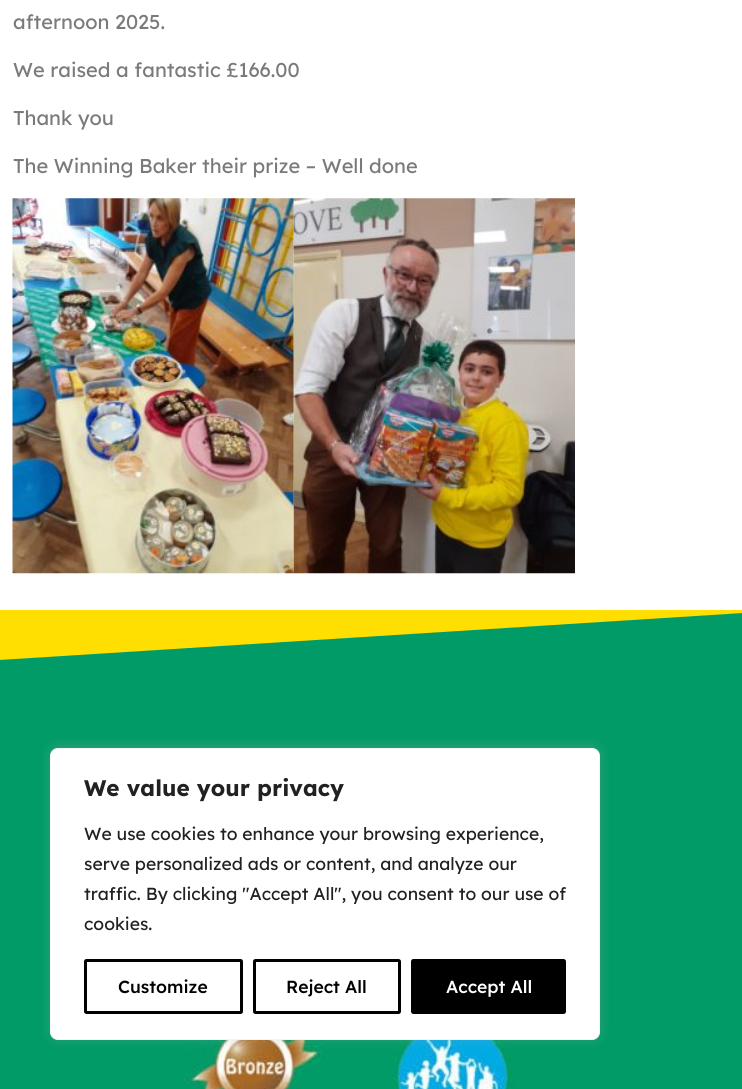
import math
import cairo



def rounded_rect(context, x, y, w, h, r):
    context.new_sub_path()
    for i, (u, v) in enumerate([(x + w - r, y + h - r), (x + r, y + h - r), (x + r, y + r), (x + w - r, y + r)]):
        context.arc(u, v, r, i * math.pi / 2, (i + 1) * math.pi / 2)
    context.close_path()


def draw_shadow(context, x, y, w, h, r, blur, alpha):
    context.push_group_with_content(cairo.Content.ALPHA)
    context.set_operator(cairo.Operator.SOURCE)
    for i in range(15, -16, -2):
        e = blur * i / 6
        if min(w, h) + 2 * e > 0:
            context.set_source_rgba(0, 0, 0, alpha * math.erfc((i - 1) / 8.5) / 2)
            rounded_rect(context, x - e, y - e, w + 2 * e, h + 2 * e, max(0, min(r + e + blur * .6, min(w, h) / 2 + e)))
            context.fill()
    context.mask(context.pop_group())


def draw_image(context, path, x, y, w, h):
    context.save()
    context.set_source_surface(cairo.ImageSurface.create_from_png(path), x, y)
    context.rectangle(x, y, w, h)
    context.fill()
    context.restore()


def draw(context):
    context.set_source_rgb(1, 1, 1)
    context.paint()
    draw_image(context, "images/1.png", 12, 198, 282, 376)
    draw_image(context, "images/2.png", 293, 198, 282, 376)
    context.set_source_rgb(0, 155 / 255, 103 / 255)
    context.rectangle(0, 613, 742, 476)
    context.fill()
    context.set_source_rgb(1, 222 / 255, 1 / 255)
    context.new_path()
    context.move_to(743, 613)
    context.line_to(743, 610)
    context.line_to(-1, 610)
    context.line_to(-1, 660)
    context.close_path()
    context.fill()
    draw_image(context, "images/3.png", 183, 1040, 335, 49)
    context.set_source_rgb(172 / 255, 171 / 255, 171 / 255)
    draw_shadow(context, 50, 746, 550, 293, 8, 6, 0.3)
    context.set_source_rgb(1, 1, 1)
    rounded_rect(context, 50.5, 748.5, 549, 291, 7.5)
    context.fill_preserve()
    context.set_source_rgb(244 / 255, 244 / 255, 244 / 255)
    context.set_line_width(1)
    context.stroke()
    rounded_rect(context, 85.5, 960.5, 156, 52, 1)
    context.set_source_rgb(0, 0, 0)
    context.set_line_width(3)
    context.stroke()
    rounded_rect(context, 254.5, 960.5, 145, 52, 1)
    context.stroke()
    rounded_rect(context, 412.5, 960.5, 152, 52, 1)
    context.fill_preserve()
    context.stroke()
    context.select_font_face("Lexend")
    context.set_font_size(20)
    context.set_source_rgb(122 / 255, 122 / 255, 122 / 255)
    context.move_to(13, 29)
    context.show_text("afternoon 2025.")
    context.move_to(13, 77)
    context.show_text("We raised a fantastic £166.00")
    context.move_to(13, 125)
    context.show_text("Thank you")
    context.move_to(13, 173)
    context.show_text("The Winning Baker their prize – Well done")
    context.select_font_face("Lexend", cairo.FontSlant.NORMAL, cairo.FontWeight.BOLD)
    context.set_font_size(22.5)
    context.set_source_rgb(33 / 255, 33 / 255, 33 / 255)
    context.move_to(84, 796)
    context.show_text("We value your privacy")
    context.select_font_face("Lexend")
    context.set_font_size(17.5)
    context.move_to(84, 840)
    context.show_text("We use cookies to enhance your browsing experience,")
    context.move_to(84, 870)
    context.show_text("serve personalized ads or content, and analyze our")
    context.move_to(84, 900)
    context.show_text("traffic. By clicking \"Accept All\", you consent to our use of")
    context.move_to(84, 930)
    context.show_text("cookies.")
    context.select_font_face("Lexend Medium")
    context.set_source_rgb(0, 0, 0)
    context.move_to(118, 993)
    context.show_text("Customize")
    context.move_to(286, 993)
    context.show_text("Reject All")
    context.set_source_rgb(1, 1, 1)
    context.move_to(446, 993)
    context.show_text("Accept All")


surface = cairo.ImageSurface(cairo.Format.RGB24, 742, 1089)
context = cairo.Context(surface)
options = cairo.FontOptions()
options.set_hint_metrics(cairo.HintMetrics.OFF)
options.set_hint_style(cairo.HintStyle.NONE)
context.set_font_options(options)
context.set_miter_limit(4)
draw(context)
surface.write_to_png("out.png")
